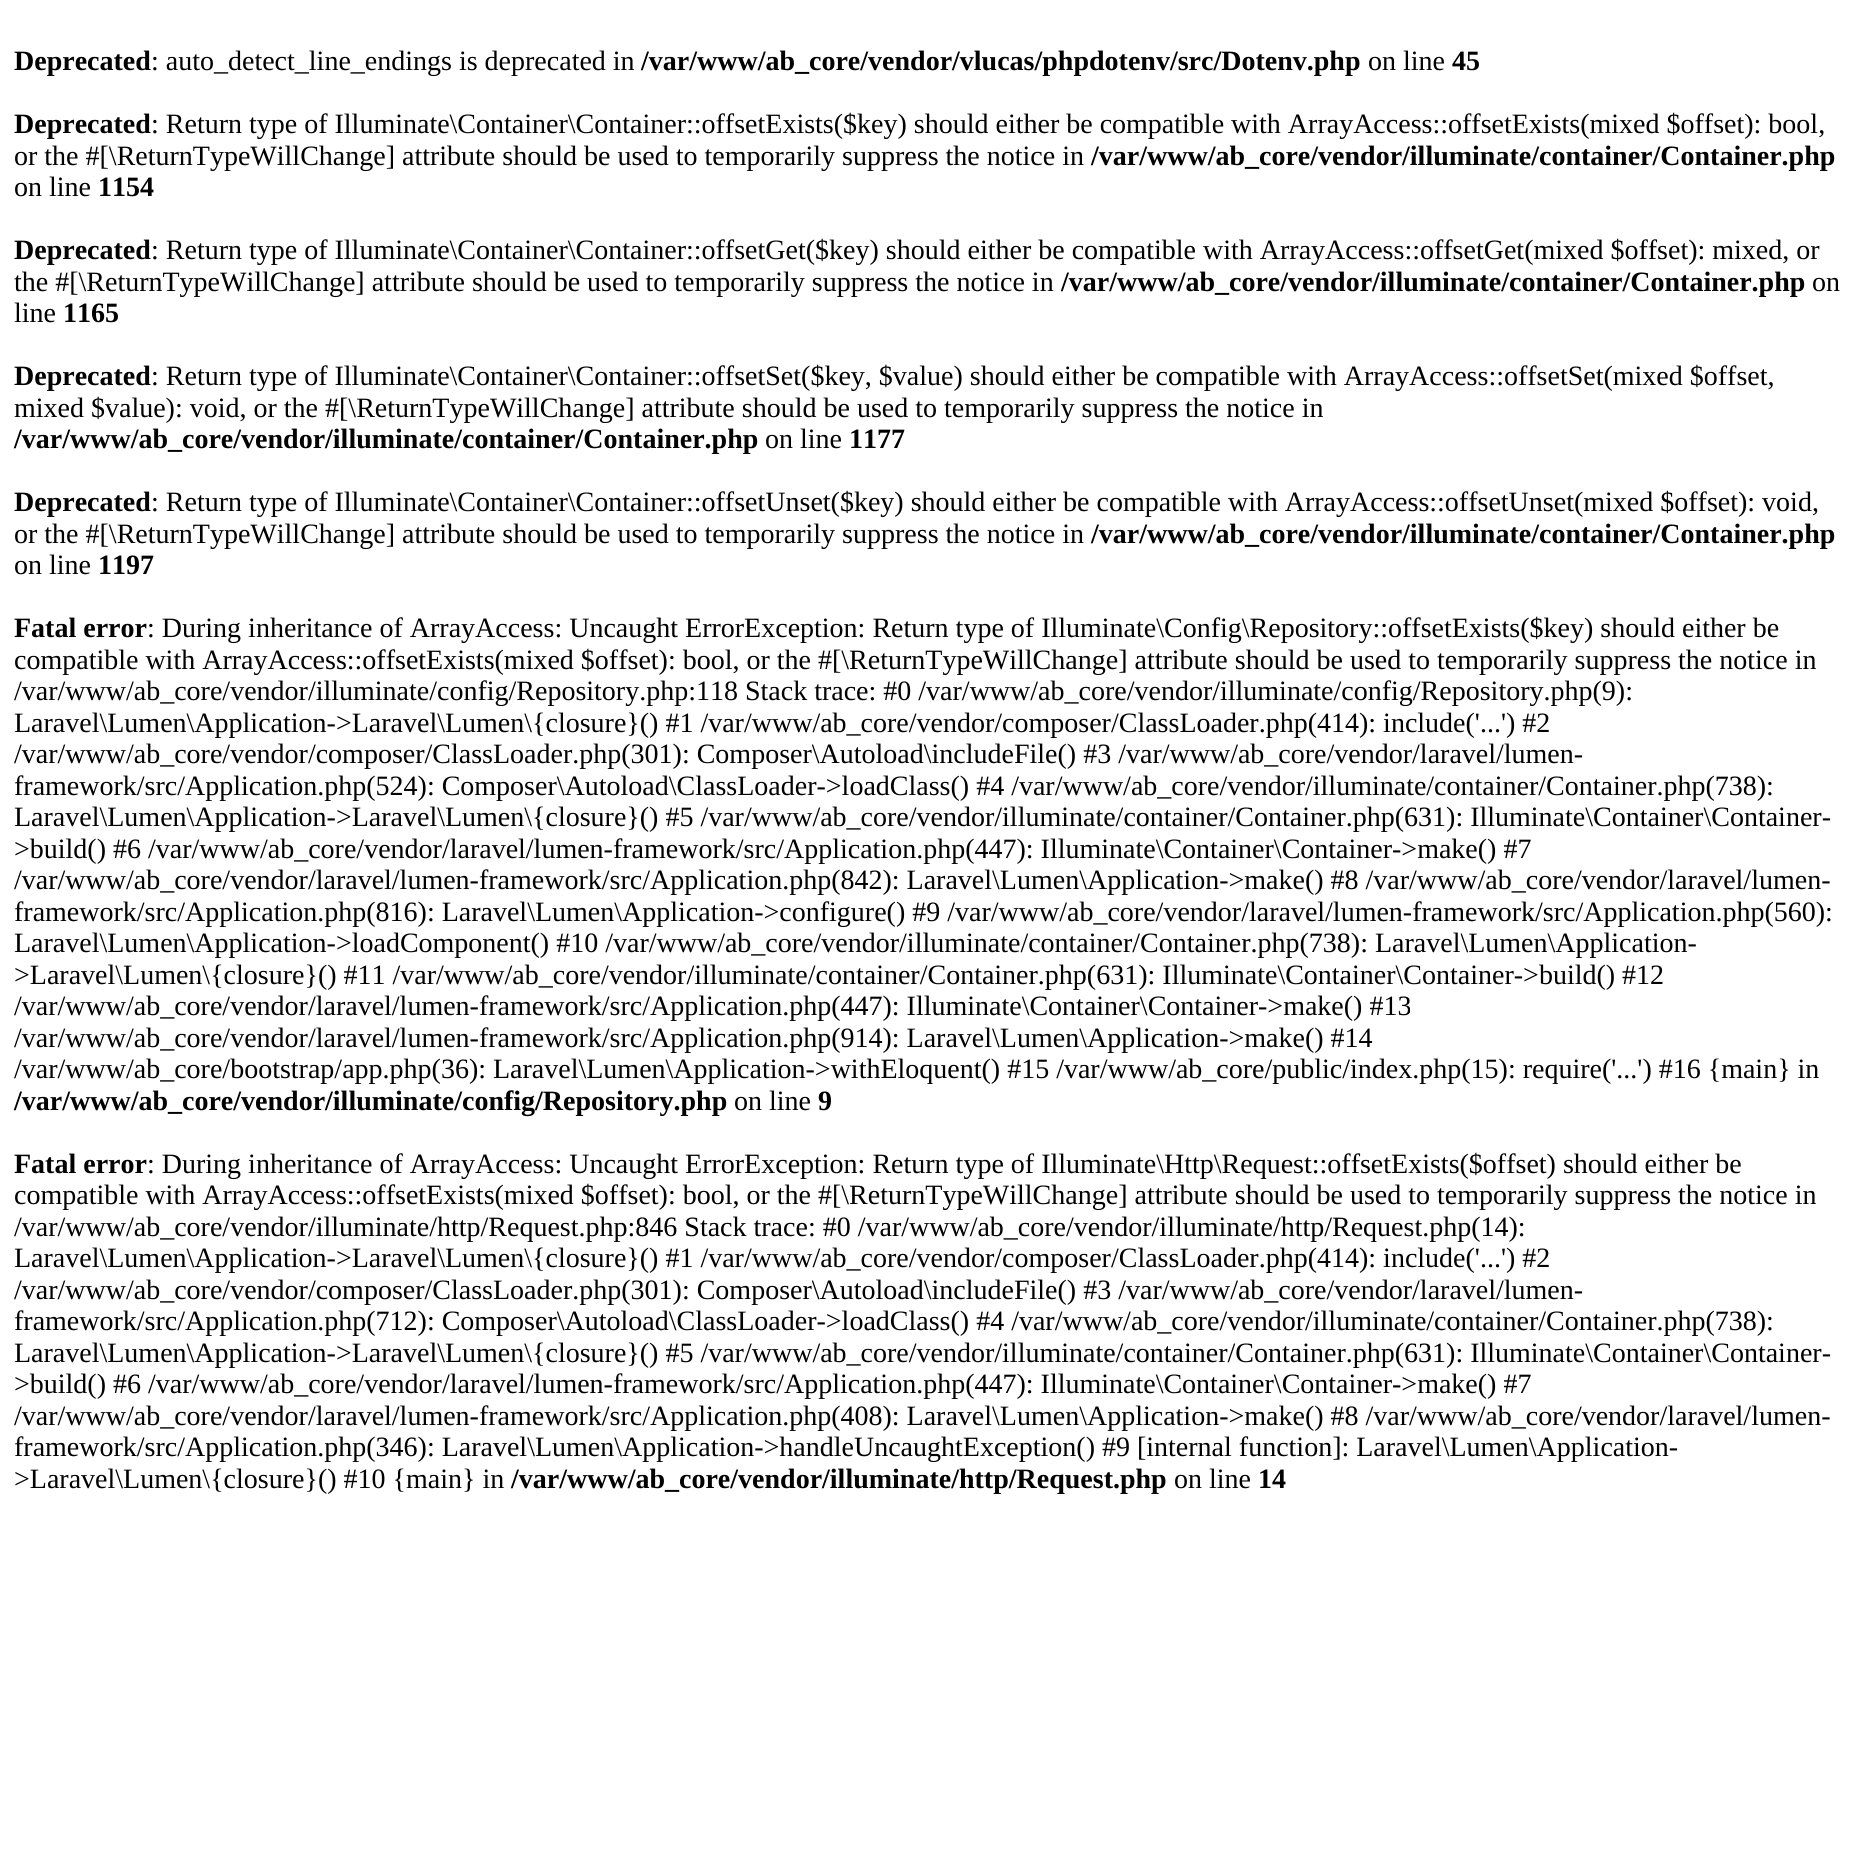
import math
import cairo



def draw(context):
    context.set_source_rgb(1, 1, 1)
    context.paint()
    context.select_font_face("Liberation Serif", cairo.FontSlant.NORMAL, cairo.FontWeight.BOLD)
    context.set_font_size(28)
    context.set_source_rgb(0, 0, 0)
    context.move_to(14, 70)
    context.show_text("Deprecated")
    context.select_font_face("Liberation Serif")
    context.move_to(151, 70)
    context.show_text(": auto_detect_line_endings is deprecated in")
    context.select_font_face("Liberation Serif", cairo.FontSlant.NORMAL, cairo.FontWeight.BOLD)
    context.move_to(641, 70)
    context.show_text("/var/www/ab_core/vendor/vlucas/phpdotenv/src/Dotenv.php")
    context.select_font_face("Liberation Serif")
    context.move_to(1368, 70)
    context.show_text("on line")
    context.select_font_face("Liberation Serif", cairo.FontSlant.NORMAL, cairo.FontWeight.BOLD)
    context.move_to(1452, 70)
    context.show_text("45")
    context.move_to(14, 133)
    context.show_text("Deprecated")
    context.select_font_face("Liberation Serif")
    context.move_to(151, 133)
    context.show_text(": Return type of Illuminate\\Container\\Container::offsetExists($key) should either be compatible with ArrayAccess::offsetExists(mixed $offset): bool,")
    context.move_to(14, 165)
    context.show_text("or the #[\\ReturnTypeWillChange] attribute should be used to temporarily suppress the notice in")
    context.select_font_face("Liberation Serif", cairo.FontSlant.NORMAL, cairo.FontWeight.BOLD)
    context.move_to(1091, 165)
    context.show_text("/var/www/ab_core/vendor/illuminate/container/Container.php")
    context.select_font_face("Liberation Serif")
    context.move_to(14, 196)
    context.show_text("on line")
    context.select_font_face("Liberation Serif", cairo.FontSlant.NORMAL, cairo.FontWeight.BOLD)
    context.move_to(98, 196)
    context.show_text("1154")
    context.move_to(14, 259)
    context.show_text("Deprecated")
    context.select_font_face("Liberation Serif")
    context.move_to(151, 259)
    context.show_text(": Return type of Illuminate\\Container\\Container::offsetGet($key) should either be compatible with ArrayAccess::offsetGet(mixed $offset): mixed, or")
    context.move_to(14, 291)
    context.show_text("the #[\\ReturnTypeWillChange] attribute should be used to temporarily suppress the notice in")
    context.select_font_face("Liberation Serif", cairo.FontSlant.NORMAL, cairo.FontWeight.BOLD)
    context.move_to(1061, 291)
    context.show_text("/var/www/ab_core/vendor/illuminate/container/Container.php")
    context.select_font_face("Liberation Serif")
    context.move_to(1812, 291)
    context.show_text("on")
    context.move_to(14, 322)
    context.show_text("line")
    context.select_font_face("Liberation Serif", cairo.FontSlant.NORMAL, cairo.FontWeight.BOLD)
    context.move_to(63, 322)
    context.show_text("1165")
    context.move_to(14, 385)
    context.show_text("Deprecated")
    context.select_font_face("Liberation Serif")
    context.move_to(151, 385)
    context.show_text(": Return type of Illuminate\\Container\\Container::offsetSet($key, $value) should either be compatible with ArrayAccess::offsetSet(mixed $offset,")
    context.move_to(14, 417)
    context.show_text("mixed $value): void, or the #[\\ReturnTypeWillChange] attribute should be used to temporarily suppress the notice in")
    context.select_font_face("Liberation Serif", cairo.FontSlant.NORMAL, cairo.FontWeight.BOLD)
    context.move_to(14, 448)
    context.show_text("/var/www/ab_core/vendor/illuminate/container/Container.php")
    context.select_font_face("Liberation Serif")
    context.move_to(765, 448)
    context.show_text("on line")
    context.select_font_face("Liberation Serif", cairo.FontSlant.NORMAL, cairo.FontWeight.BOLD)
    context.move_to(849, 448)
    context.show_text("1177")
    context.move_to(14, 511)
    context.show_text("Deprecated")
    context.select_font_face("Liberation Serif")
    context.move_to(151, 511)
    context.show_text(": Return type of Illuminate\\Container\\Container::offsetUnset($key) should either be compatible with ArrayAccess::offsetUnset(mixed $offset): void,")
    context.move_to(14, 543)
    context.show_text("or the #[\\ReturnTypeWillChange] attribute should be used to temporarily suppress the notice in")
    context.select_font_face("Liberation Serif", cairo.FontSlant.NORMAL, cairo.FontWeight.BOLD)
    context.move_to(1091, 543)
    context.show_text("/var/www/ab_core/vendor/illuminate/container/Container.php")
    context.select_font_face("Liberation Serif")
    context.move_to(14, 574)
    context.show_text("on line")
    context.select_font_face("Liberation Serif", cairo.FontSlant.NORMAL, cairo.FontWeight.BOLD)
    context.move_to(98, 574)
    context.show_text("1197")
    context.move_to(14, 637)
    context.show_text("Fatal error")
    context.select_font_face("Liberation Serif")
    context.move_to(147, 637)
    context.show_text(": During inheritance of ArrayAccess: Uncaught ErrorException: Return type of Illuminate\\Config\\Repository::offsetExists($key) should either be")
    context.move_to(14, 669)
    context.show_text("compatible with ArrayAccess::offsetExists(mixed $offset): bool, or the #[\\ReturnTypeWillChange] attribute should be used to temporarily suppress the notice in")
    context.move_to(14, 700)
    context.show_text("/var/www/ab_core/vendor/illuminate/config/Repository.php:118 Stack trace: #0 /var/www/ab_core/vendor/illuminate/config/Repository.php(9):")
    context.move_to(14, 732)
    context.show_text("Laravel\\Lumen\\Application->Laravel\\Lumen\\{closure}() #1 /var/www/ab_core/vendor/composer/ClassLoader.php(414): include('...') #2")
    context.move_to(14, 763)
    context.show_text("/var/www/ab_core/vendor/composer/ClassLoader.php(301): Composer\\Autoload\\includeFile() #3 /var/www/ab_core/vendor/laravel/lumen-")
    context.move_to(14, 795)
    context.show_text("framework/src/Application.php(524): Composer\\Autoload\\ClassLoader->loadClass() #4 /var/www/ab_core/vendor/illuminate/container/Container.php(738):")
    context.move_to(14, 826)
    context.show_text("Laravel\\Lumen\\Application->Laravel\\Lumen\\{closure}() #5 /var/www/ab_core/vendor/illuminate/container/Container.php(631): Illuminate\\Container\\Container-")
    context.move_to(14, 858)
    context.show_text(">build() #6 /var/www/ab_core/vendor/laravel/lumen-framework/src/Application.php(447): Illuminate\\Container\\Container->make() #7")
    context.move_to(14, 889)
    context.show_text("/var/www/ab_core/vendor/laravel/lumen-framework/src/Application.php(842): Laravel\\Lumen\\Application->make() #8 /var/www/ab_core/vendor/laravel/lumen-")
    context.move_to(14, 921)
    context.show_text("framework/src/Application.php(816): Laravel\\Lumen\\Application->configure() #9 /var/www/ab_core/vendor/laravel/lumen-framework/src/Application.php(560):")
    context.move_to(14, 952)
    context.show_text("Laravel\\Lumen\\Application->loadComponent() #10 /var/www/ab_core/vendor/illuminate/container/Container.php(738): Laravel\\Lumen\\Application-")
    context.move_to(14, 984)
    context.show_text(">Laravel\\Lumen\\{closure}() #11 /var/www/ab_core/vendor/illuminate/container/Container.php(631): Illuminate\\Container\\Container->build() #12")
    context.move_to(14, 1015)
    context.show_text("/var/www/ab_core/vendor/laravel/lumen-framework/src/Application.php(447): Illuminate\\Container\\Container->make() #13")
    context.move_to(14, 1047)
    context.show_text("/var/www/ab_core/vendor/laravel/lumen-framework/src/Application.php(914): Laravel\\Lumen\\Application->make() #14")
    context.move_to(14, 1078)
    context.show_text("/var/www/ab_core/bootstrap/app.php(36): Laravel\\Lumen\\Application->withEloquent() #15 /var/www/ab_core/public/index.php(15): require('...') #16 {main} in")
    context.select_font_face("Liberation Serif", cairo.FontSlant.NORMAL, cairo.FontWeight.BOLD)
    context.move_to(14, 1110)
    context.show_text("/var/www/ab_core/vendor/illuminate/config/Repository.php")
    context.select_font_face("Liberation Serif")
    context.move_to(734, 1110)
    context.show_text("on line")
    context.select_font_face("Liberation Serif", cairo.FontSlant.NORMAL, cairo.FontWeight.BOLD)
    context.move_to(818, 1110)
    context.show_text("9")
    context.move_to(14, 1173)
    context.show_text("Fatal error")
    context.select_font_face("Liberation Serif")
    context.move_to(147, 1173)
    context.show_text(": During inheritance of ArrayAccess: Uncaught ErrorException: Return type of Illuminate\\Http\\Request::offsetExists($offset) should either be")
    context.move_to(14, 1204)
    context.show_text("compatible with ArrayAccess::offsetExists(mixed $offset): bool, or the #[\\ReturnTypeWillChange] attribute should be used to temporarily suppress the notice in")
    context.move_to(14, 1236)
    context.show_text("/var/www/ab_core/vendor/illuminate/http/Request.php:846 Stack trace: #0 /var/www/ab_core/vendor/illuminate/http/Request.php(14):")
    context.move_to(14, 1267)
    context.show_text("Laravel\\Lumen\\Application->Laravel\\Lumen\\{closure}() #1 /var/www/ab_core/vendor/composer/ClassLoader.php(414): include('...') #2")
    context.move_to(14, 1299)
    context.show_text("/var/www/ab_core/vendor/composer/ClassLoader.php(301): Composer\\Autoload\\includeFile() #3 /var/www/ab_core/vendor/laravel/lumen-")
    context.move_to(14, 1330)
    context.show_text("framework/src/Application.php(712): Composer\\Autoload\\ClassLoader->loadClass() #4 /var/www/ab_core/vendor/illuminate/container/Container.php(738):")
    context.move_to(14, 1362)
    context.show_text("Laravel\\Lumen\\Application->Laravel\\Lumen\\{closure}() #5 /var/www/ab_core/vendor/illuminate/container/Container.php(631): Illuminate\\Container\\Container-")
    context.move_to(14, 1393)
    context.show_text(">build() #6 /var/www/ab_core/vendor/laravel/lumen-framework/src/Application.php(447): Illuminate\\Container\\Container->make() #7")
    context.move_to(14, 1425)
    context.show_text("/var/www/ab_core/vendor/laravel/lumen-framework/src/Application.php(408): Laravel\\Lumen\\Application->make() #8 /var/www/ab_core/vendor/laravel/lumen-")
    context.move_to(14, 1456)
    context.show_text("framework/src/Application.php(346): Laravel\\Lumen\\Application->handleUncaughtException() #9 [internal function]: Laravel\\Lumen\\Application-")
    context.move_to(14, 1488)
    context.show_text(">Laravel\\Lumen\\{closure}() #10 {main} in")
    context.select_font_face("Liberation Serif", cairo.FontSlant.NORMAL, cairo.FontWeight.BOLD)
    context.move_to(511, 1488)
    context.show_text("/var/www/ab_core/vendor/illuminate/http/Request.php")
    context.select_font_face("Liberation Serif")
    context.move_to(1174, 1488)
    context.show_text("on line")
    context.select_font_face("Liberation Serif", cairo.FontSlant.NORMAL, cairo.FontWeight.BOLD)
    context.move_to(1258, 1488)
    context.show_text("14")


surface = cairo.ImageSurface(cairo.Format.RGB24, 1854, 1856)
context = cairo.Context(surface)
options = cairo.FontOptions()
options.set_hint_metrics(cairo.HintMetrics.OFF)
options.set_hint_style(cairo.HintStyle.NONE)
context.set_font_options(options)
context.set_miter_limit(4)
draw(context)
surface.write_to_png("out.png")
